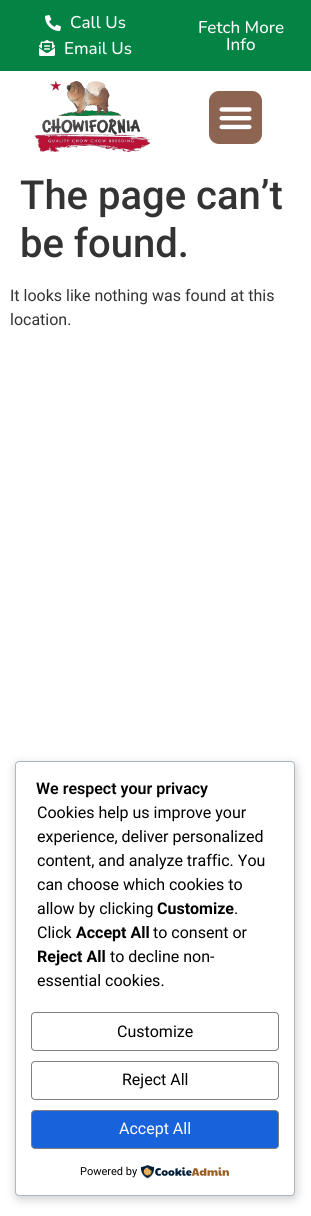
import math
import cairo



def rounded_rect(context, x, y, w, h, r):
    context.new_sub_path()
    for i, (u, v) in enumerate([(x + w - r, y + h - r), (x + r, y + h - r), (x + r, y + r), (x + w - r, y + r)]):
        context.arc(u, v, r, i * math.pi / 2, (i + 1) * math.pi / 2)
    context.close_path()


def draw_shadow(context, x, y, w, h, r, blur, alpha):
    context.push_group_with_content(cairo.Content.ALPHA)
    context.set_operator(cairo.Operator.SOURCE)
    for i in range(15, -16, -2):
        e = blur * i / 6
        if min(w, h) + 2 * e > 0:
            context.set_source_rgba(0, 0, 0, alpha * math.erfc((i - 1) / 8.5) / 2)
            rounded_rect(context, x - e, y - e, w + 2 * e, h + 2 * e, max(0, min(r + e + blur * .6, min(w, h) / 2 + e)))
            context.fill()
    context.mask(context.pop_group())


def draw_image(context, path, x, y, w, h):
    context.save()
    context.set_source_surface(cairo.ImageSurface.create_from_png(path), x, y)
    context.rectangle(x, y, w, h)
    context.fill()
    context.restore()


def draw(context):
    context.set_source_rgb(1, 1, 1)
    context.paint()
    context.set_source_rgb(3 / 255, 132 / 255, 69 / 255)
    context.rectangle(0, 0, 311, 71)
    context.fill()
    draw_image(context, "images/1.png", 45, 15, 16, 16)
    draw_image(context, "images/2.png", 39, 40, 16, 16)
    draw_image(context, "images/3.png", 34, 81, 116, 71)
    context.set_source_rgb(140 / 255, 100 / 255, 81 / 255)
    rounded_rect(context, 209, 91, 53, 53, 10)
    context.fill()
    draw_image(context, "images/4.png", 219, 107, 33, 23)
    context.set_source_rgb(0, 0, 0)
    draw_shadow(context, 16, 764, 280, 435, 4, 5, 0.2)
    context.set_source_rgb(1, 1, 1)
    rounded_rect(context, 15.5, 761.5, 279, 434, 3.5)
    context.fill_preserve()
    context.set_source_rgb(171 / 255, 184 / 255, 195 / 255)
    context.set_line_width(1)
    context.stroke()
    rounded_rect(context, 31.5, 1012.5, 247, 38, 3.5)
    context.set_source_rgb(128 / 255, 128 / 255, 128 / 255)
    context.stroke()
    rounded_rect(context, 31.5, 1061.5, 247, 38, 3.5)
    context.stroke()
    context.set_source_rgb(24 / 255, 99 / 255, 220 / 255)
    rounded_rect(context, 31.5, 1110.5, 247, 38, 3.5)
    context.fill_preserve()
    context.set_source_rgb(128 / 255, 128 / 255, 128 / 255)
    context.stroke()
    draw_image(context, "images/5.png", 141, 1165, 88, 14)
    context.select_font_face("Nunito Medium")
    context.set_font_size(17)
    context.set_source_rgb(1, 1, 1)
    context.move_to(70, 28)
    context.show_text("Call Us")
    context.move_to(64, 54)
    context.show_text("Email Us")
    context.move_to(198, 33)
    context.show_text("Fetch More")
    context.move_to(226, 50)
    context.show_text("Info")
    context.select_font_face("Roboto Medium")
    context.set_font_size(40)
    context.set_source_rgb(51 / 255, 51 / 255, 51 / 255)
    context.move_to(20, 209)
    context.show_text("The page can’t")
    context.move_to(20, 257)
    context.show_text("be found.")
    context.select_font_face("Roboto")
    context.set_font_size(16)
    context.move_to(10, 301)
    context.show_text("It looks like nothing was found at this")
    context.move_to(10, 325)
    context.show_text("location.")
    context.select_font_face("Roboto SemiBold")
    context.set_source_rgb(0, 0, 0)
    context.move_to(36, 794)
    context.show_text("We respect your privacy")
    context.select_font_face("Roboto")
    context.move_to(37, 818)
    context.show_text("Cookies help us improve your")
    context.move_to(37, 842)
    context.show_text("experience, deliver personalized")
    context.move_to(37, 866)
    context.show_text("content, and analyze traffic. You")
    context.move_to(37, 890)
    context.show_text("can choose which cookies to")
    context.move_to(37, 914)
    context.show_text("allow by clicking")
    context.select_font_face("Roboto", cairo.FontSlant.NORMAL, cairo.FontWeight.BOLD)
    context.move_to(157, 914)
    context.show_text("Customize")
    context.select_font_face("Roboto")
    context.move_to(234, 914)
    context.show_text(".")
    context.move_to(37, 938)
    context.show_text("Click")
    context.select_font_face("Roboto", cairo.FontSlant.NORMAL, cairo.FontWeight.BOLD)
    context.move_to(76, 938)
    context.show_text("Accept All")
    context.select_font_face("Roboto")
    context.move_to(153, 938)
    context.show_text("to consent or")
    context.select_font_face("Roboto", cairo.FontSlant.NORMAL, cairo.FontWeight.BOLD)
    context.move_to(37, 962)
    context.show_text("Reject All")
    context.select_font_face("Roboto")
    context.move_to(110, 962)
    context.show_text("to decline non-")
    context.move_to(37, 986)
    context.show_text("essential cookies.")
    context.move_to(117, 1037)
    context.show_text("Customize")
    context.move_to(122, 1085)
    context.show_text("Reject All")
    context.set_source_rgb(1, 1, 1)
    context.move_to(119, 1134)
    context.show_text("Accept All")
    context.set_font_size(11)
    context.set_source_rgb(0, 0, 0)
    context.move_to(80, 1175)
    context.show_text("Powered by")


surface = cairo.ImageSurface(cairo.Format.RGB24, 311, 1216)
context = cairo.Context(surface)
options = cairo.FontOptions()
options.set_hint_metrics(cairo.HintMetrics.OFF)
options.set_hint_style(cairo.HintStyle.NONE)
context.set_font_options(options)
context.set_miter_limit(4)
draw(context)
surface.write_to_png("out.png")
